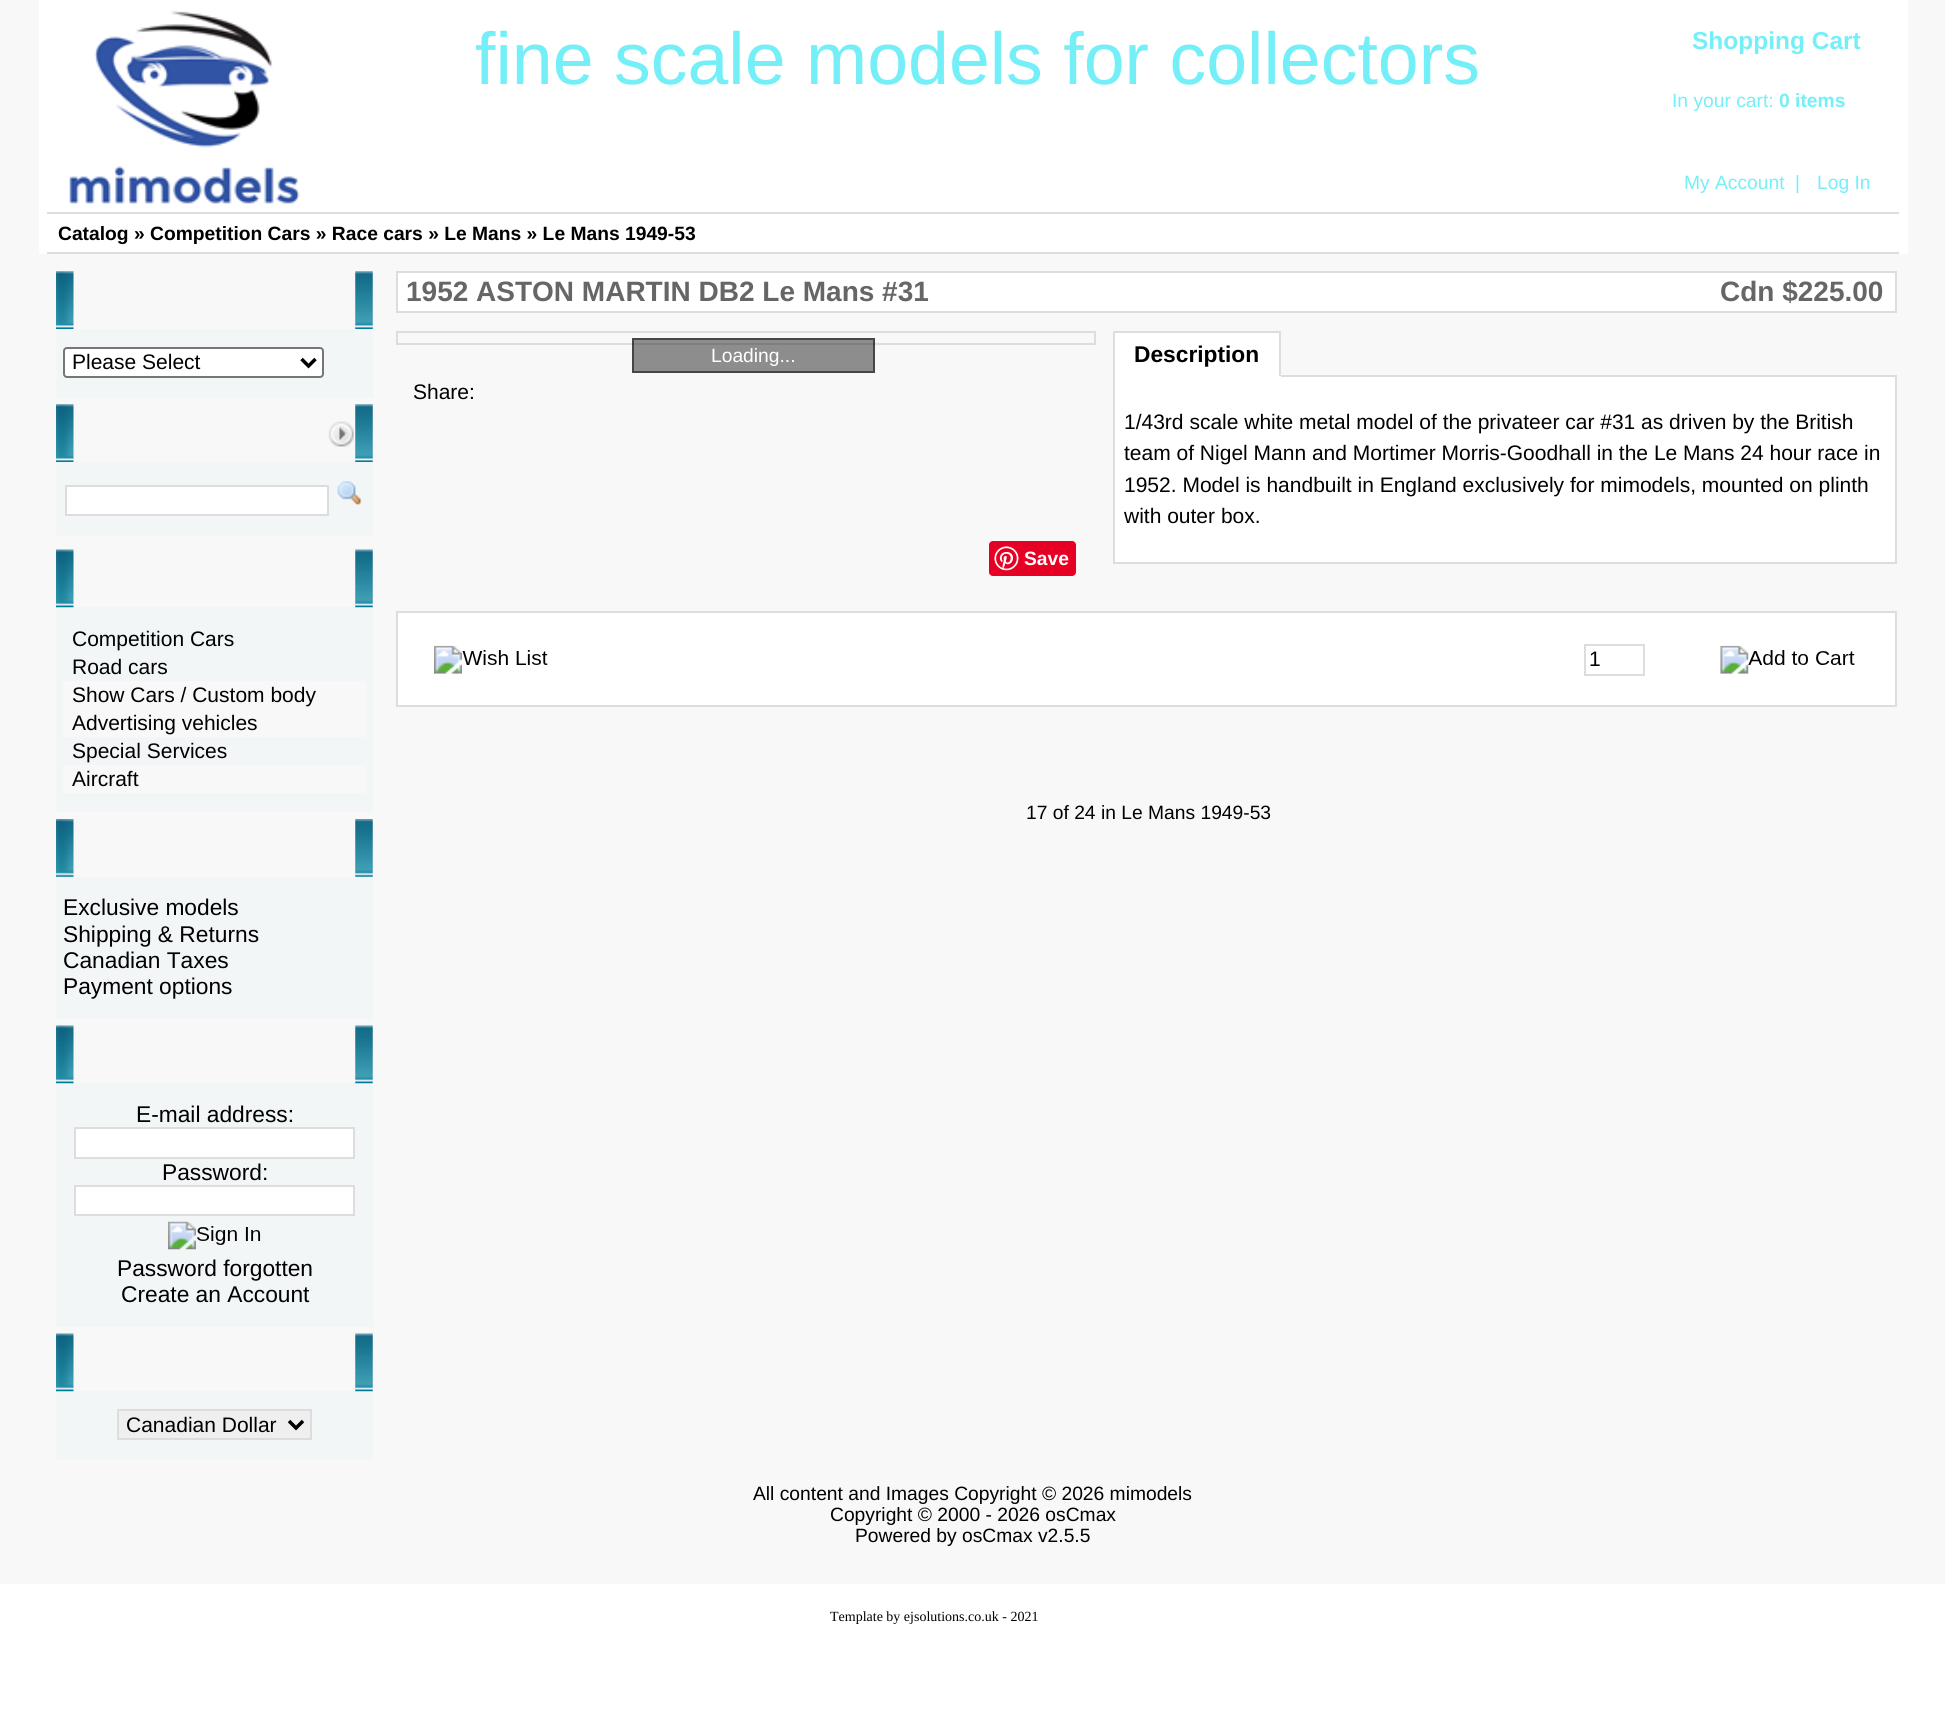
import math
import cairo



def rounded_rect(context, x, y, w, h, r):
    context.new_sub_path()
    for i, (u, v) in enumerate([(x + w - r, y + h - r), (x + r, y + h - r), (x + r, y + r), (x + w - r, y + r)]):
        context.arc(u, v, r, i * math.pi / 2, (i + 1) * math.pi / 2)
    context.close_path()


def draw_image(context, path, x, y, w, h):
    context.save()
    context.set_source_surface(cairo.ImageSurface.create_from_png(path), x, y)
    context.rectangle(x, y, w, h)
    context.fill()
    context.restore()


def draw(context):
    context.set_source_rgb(1, 1, 1)
    context.paint()
    context.set_source_rgb(248 / 255, 248 / 255, 248 / 255)
    context.rectangle(0, 0, 1945, 1584)
    context.fill()
    context.set_source_rgb(1, 1, 1)
    context.rectangle(39, 0, 1869, 254)
    context.fill()
    draw_image(context, "images/1.png", 69, 10, 231, 194)
    context.set_source_rgb(221 / 255, 221 / 255, 221 / 255)
    context.rectangle(47, 212, 1852, 2)
    context.fill()
    context.rectangle(47, 252, 1852, 2)
    context.fill()
    draw_image(context, "images/2.png", 56, 271, 18, 58)
    draw_image(context, "images/3.png", 355, 271, 18, 58)
    context.set_source_rgb(242 / 255, 246 / 255, 247 / 255)
    context.rectangle(56, 329, 317, 69)
    context.fill()
    context.set_source_rgb(1, 1, 1)
    rounded_rect(context, 64, 348, 259, 29, 3)
    context.fill_preserve()
    context.set_source_rgb(118 / 255, 118 / 255, 118 / 255)
    context.stroke()
    context.new_path()
    context.move_to(301.5, 359)
    context.line_to(308.5, 366)
    context.line_to(315.5, 359)
    context.set_source_rgb(0, 0, 0)
    context.set_line_width(3.5)
    context.stroke()
    draw_image(context, "images/2.png", 56, 404, 18, 58)
    draw_image(context, "images/4.png", 328, 421, 26, 26)
    draw_image(context, "images/3.png", 355, 404, 18, 58)
    context.set_source_rgb(242 / 255, 246 / 255, 247 / 255)
    context.rectangle(56, 462, 317, 74)
    context.fill()
    context.set_source_rgb(1, 1, 1)
    context.rectangle(66, 486, 262, 29)
    context.fill_preserve()
    context.set_source_rgb(221 / 255, 221 / 255, 221 / 255)
    context.set_line_width(2)
    context.stroke()
    draw_image(context, "images/5.png", 337, 481, 24, 25)
    context.set_source_rgb(242 / 255, 246 / 255, 247 / 255)
    context.rectangle(56, 607, 317, 205)
    context.fill()
    draw_image(context, "images/6.png", 56, 549, 18, 59)
    draw_image(context, "images/7.png", 355, 549, 18, 59)
    context.set_source_rgb(248 / 255, 248 / 255, 249 / 255)
    context.rectangle(63, 681, 303, 56)
    context.fill()
    context.rectangle(63, 765, 303, 28)
    context.fill()
    draw_image(context, "images/8.png", 56, 819, 18, 58)
    draw_image(context, "images/9.png", 355, 819, 18, 58)
    context.set_source_rgb(242 / 255, 246 / 255, 247 / 255)
    context.rectangle(56, 877, 317, 142)
    context.fill()
    context.rectangle(56, 1083, 317, 244)
    context.fill()
    draw_image(context, "images/6.png", 56, 1025, 18, 59)
    draw_image(context, "images/7.png", 355, 1025, 18, 59)
    context.set_source_rgb(1, 1, 1)
    context.rectangle(75, 1128, 279, 30)
    context.fill_preserve()
    context.set_source_rgb(221 / 255, 221 / 255, 221 / 255)
    context.stroke()
    context.set_source_rgb(1, 1, 1)
    context.rectangle(75, 1186, 279, 29)
    context.fill_preserve()
    context.set_source_rgb(221 / 255, 221 / 255, 221 / 255)
    context.stroke()
    draw_image(context, "images/10.png", 168, 1221, 93, 29)
    context.set_source_rgb(242 / 255, 246 / 255, 247 / 255)
    context.rectangle(56, 1391, 317, 69)
    context.fill()
    draw_image(context, "images/6.png", 56, 1333, 18, 59)
    draw_image(context, "images/7.png", 355, 1333, 18, 59)
    context.set_source_rgb(239 / 255, 239 / 255, 239 / 255)
    context.rectangle(118, 1410, 193, 29)
    context.fill_preserve()
    context.set_source_rgb(221 / 255, 221 / 255, 221 / 255)
    context.stroke()
    context.new_path()
    context.move_to(289, 1421)
    context.line_to(296, 1428)
    context.line_to(303, 1421)
    context.set_source_rgb(0, 0, 0)
    context.set_line_width(3.5)
    context.stroke()
    context.set_source_rgb(1, 1, 1)
    context.rectangle(397, 272, 1499, 40)
    context.fill_preserve()
    context.set_source_rgb(221 / 255, 221 / 255, 221 / 255)
    context.set_line_width(2)
    context.stroke()
    context.rectangle(397, 332, 698, 12)
    context.stroke()
    context.set_source_rgba(34 / 255, 34 / 255, 34 / 255, 0.5)
    context.rectangle(632, 338, 243, 35)
    context.fill()
    context.rectangle(633, 339, 241, 33)
    context.set_source_rgba(0, 0, 0, 0.5)
    context.stroke()
    context.set_source_rgb(230 / 255, 0, 35 / 255)
    rounded_rect(context, 989, 541, 87, 35, 4)
    context.fill()
    draw_image(context, "images/11.png", 994, 546, 25, 25)
    context.set_source_rgb(221 / 255, 221 / 255, 221 / 255)
    context.rectangle(1113, 331, 2, 44)
    context.fill()
    context.set_source_rgb(1, 1, 1)
    context.rectangle(1114, 376, 782, 187)
    context.fill_preserve()
    context.set_source_rgb(221 / 255, 221 / 255, 221 / 255)
    context.stroke()
    context.set_source_rgb(1, 1, 1)
    context.rectangle(1115, 333, 164, 43)
    context.fill()
    context.set_source_rgb(221 / 255, 221 / 255, 221 / 255)
    context.rectangle(1115, 331, 166, 2)
    context.fill()
    context.rectangle(1279, 331, 2, 47)
    context.fill()
    context.set_source_rgb(1, 1, 1)
    context.rectangle(1115, 376, 166, 2)
    context.fill()
    context.rectangle(397, 612, 1499, 94)
    context.fill_preserve()
    context.set_source_rgb(221 / 255, 221 / 255, 221 / 255)
    context.stroke()
    draw_image(context, "images/12.png", 434, 645, 114, 29)
    context.rectangle(1585, 645, 59, 30)
    context.stroke()
    draw_image(context, "images/13.png", 1720, 645, 135, 29)
    context.select_font_face("Liberation Sans")
    context.set_font_size(73.5)
    context.set_source_rgb(116 / 255, 239 / 255, 248 / 255)
    context.move_to(475, 84)
    context.show_text("fine scale models for collectors")
    context.select_font_face("Liberation Sans", cairo.FontSlant.NORMAL, cairo.FontWeight.BOLD)
    context.set_font_size(24.5)
    context.move_to(1692, 49)
    context.show_text("Shopping Cart")
    context.select_font_face("Liberation Sans")
    context.set_font_size(19.25)
    context.move_to(1672, 107)
    context.show_text("In your cart:")
    context.select_font_face("Liberation Sans", cairo.FontSlant.NORMAL, cairo.FontWeight.BOLD)
    context.move_to(1779, 107)
    context.show_text("0 items")
    context.select_font_face("Liberation Sans")
    context.move_to(1684, 189)
    context.show_text("My Account")
    context.move_to(1795, 189)
    context.show_text("|")
    context.move_to(1817, 189)
    context.show_text("Log In")
    context.select_font_face("Liberation Sans", cairo.FontSlant.NORMAL, cairo.FontWeight.BOLD)
    context.set_source_rgb(0, 0, 0)
    context.move_to(58, 240)
    context.show_text("Catalog » Competition Cars » Race cars » Le Mans » Le Mans 1949-53")
    context.select_font_face("Liberation Sans")
    context.set_font_size(21)
    context.move_to(72, 369)
    context.show_text("Please Select")
    context.move_to(72, 646)
    context.show_text("Competition Cars")
    context.move_to(72, 674)
    context.show_text("Road cars")
    context.move_to(72, 702)
    context.show_text("Show Cars / Custom body")
    context.move_to(72, 730)
    context.show_text("Advertising vehicles")
    context.move_to(72, 758)
    context.show_text("Special Services")
    context.move_to(72, 786)
    context.show_text("Aircraft")
    context.set_font_size(22.75)
    context.move_to(63, 915)
    context.show_text("Exclusive models")
    context.move_to(63, 942)
    context.show_text("Shipping & Returns")
    context.move_to(63, 968)
    context.show_text("Canadian Taxes")
    context.move_to(63, 994)
    context.show_text("Payment options")
    context.move_to(136, 1122)
    context.show_text("E-mail address:")
    context.move_to(162, 1180)
    context.show_text("Password:")
    context.move_to(117, 1276)
    context.show_text("Password forgotten")
    context.move_to(121, 1302)
    context.show_text("Create an Account")
    context.set_font_size(21)
    context.move_to(126, 1432)
    context.show_text("Canadian Dollar")
    context.select_font_face("Liberation Sans", cairo.FontSlant.NORMAL, cairo.FontWeight.BOLD)
    context.set_font_size(28)
    context.set_source_rgb(102 / 255, 102 / 255, 102 / 255)
    context.move_to(406, 301)
    context.show_text("1952 ASTON MARTIN DB2 Le Mans #31")
    context.move_to(1720, 301)
    context.show_text("Cdn $225.00")
    context.select_font_face("Liberation Sans")
    context.set_font_size(19.25)
    context.set_source_rgb(1, 1, 1)
    context.move_to(711, 362)
    context.show_text("Loading...")
    context.set_font_size(21)
    context.set_source_rgb(0, 0, 0)
    context.move_to(413, 399)
    context.show_text("Share:")
    context.select_font_face("Liberation Sans", cairo.FontSlant.NORMAL, cairo.FontWeight.BOLD)
    context.set_font_size(19.25)
    context.set_source_rgb(1, 1, 1)
    context.move_to(1024, 565)
    context.show_text("Save")
    context.set_font_size(22.75)
    context.set_source_rgb(0, 0, 0)
    context.move_to(1134, 362)
    context.show_text("Description")
    context.select_font_face("Liberation Sans")
    context.set_font_size(21)
    context.move_to(1124, 429)
    context.show_text("1/43rd scale white metal model of the privateer car #31 as driven by the British")
    context.move_to(1124, 460)
    context.show_text("team of Nigel Mann and Mortimer Morris-Goodhall in the Le Mans 24 hour race in")
    context.move_to(1124, 492)
    context.show_text("1952. Model is handbuilt in England exclusively for mimodels, mounted on plinth")
    context.move_to(1124, 523)
    context.show_text("with outer box.")
    context.move_to(1589, 666)
    context.show_text("1")
    context.set_font_size(19.25)
    context.move_to(1026, 819)
    context.show_text("17 of 24 in Le Mans 1949-53")
    context.move_to(753, 1500)
    context.show_text("All content and Images Copyright © 2026 mimodels")
    context.move_to(830, 1521)
    context.show_text("Copyright © 2000 - 2026 osCmax")
    context.move_to(855, 1542)
    context.show_text("Powered by osCmax v2.5.5")
    context.select_font_face("Liberation Serif")
    context.set_font_size(14)
    context.move_to(830, 1621)
    context.show_text("Template by ejsolutions.co.uk - 2021")


surface = cairo.ImageSurface(cairo.Format.RGB24, 1945, 1717)
context = cairo.Context(surface)
options = cairo.FontOptions()
options.set_hint_metrics(cairo.HintMetrics.OFF)
options.set_hint_style(cairo.HintStyle.NONE)
context.set_font_options(options)
context.set_miter_limit(4)
draw(context)
surface.write_to_png("out.png")
